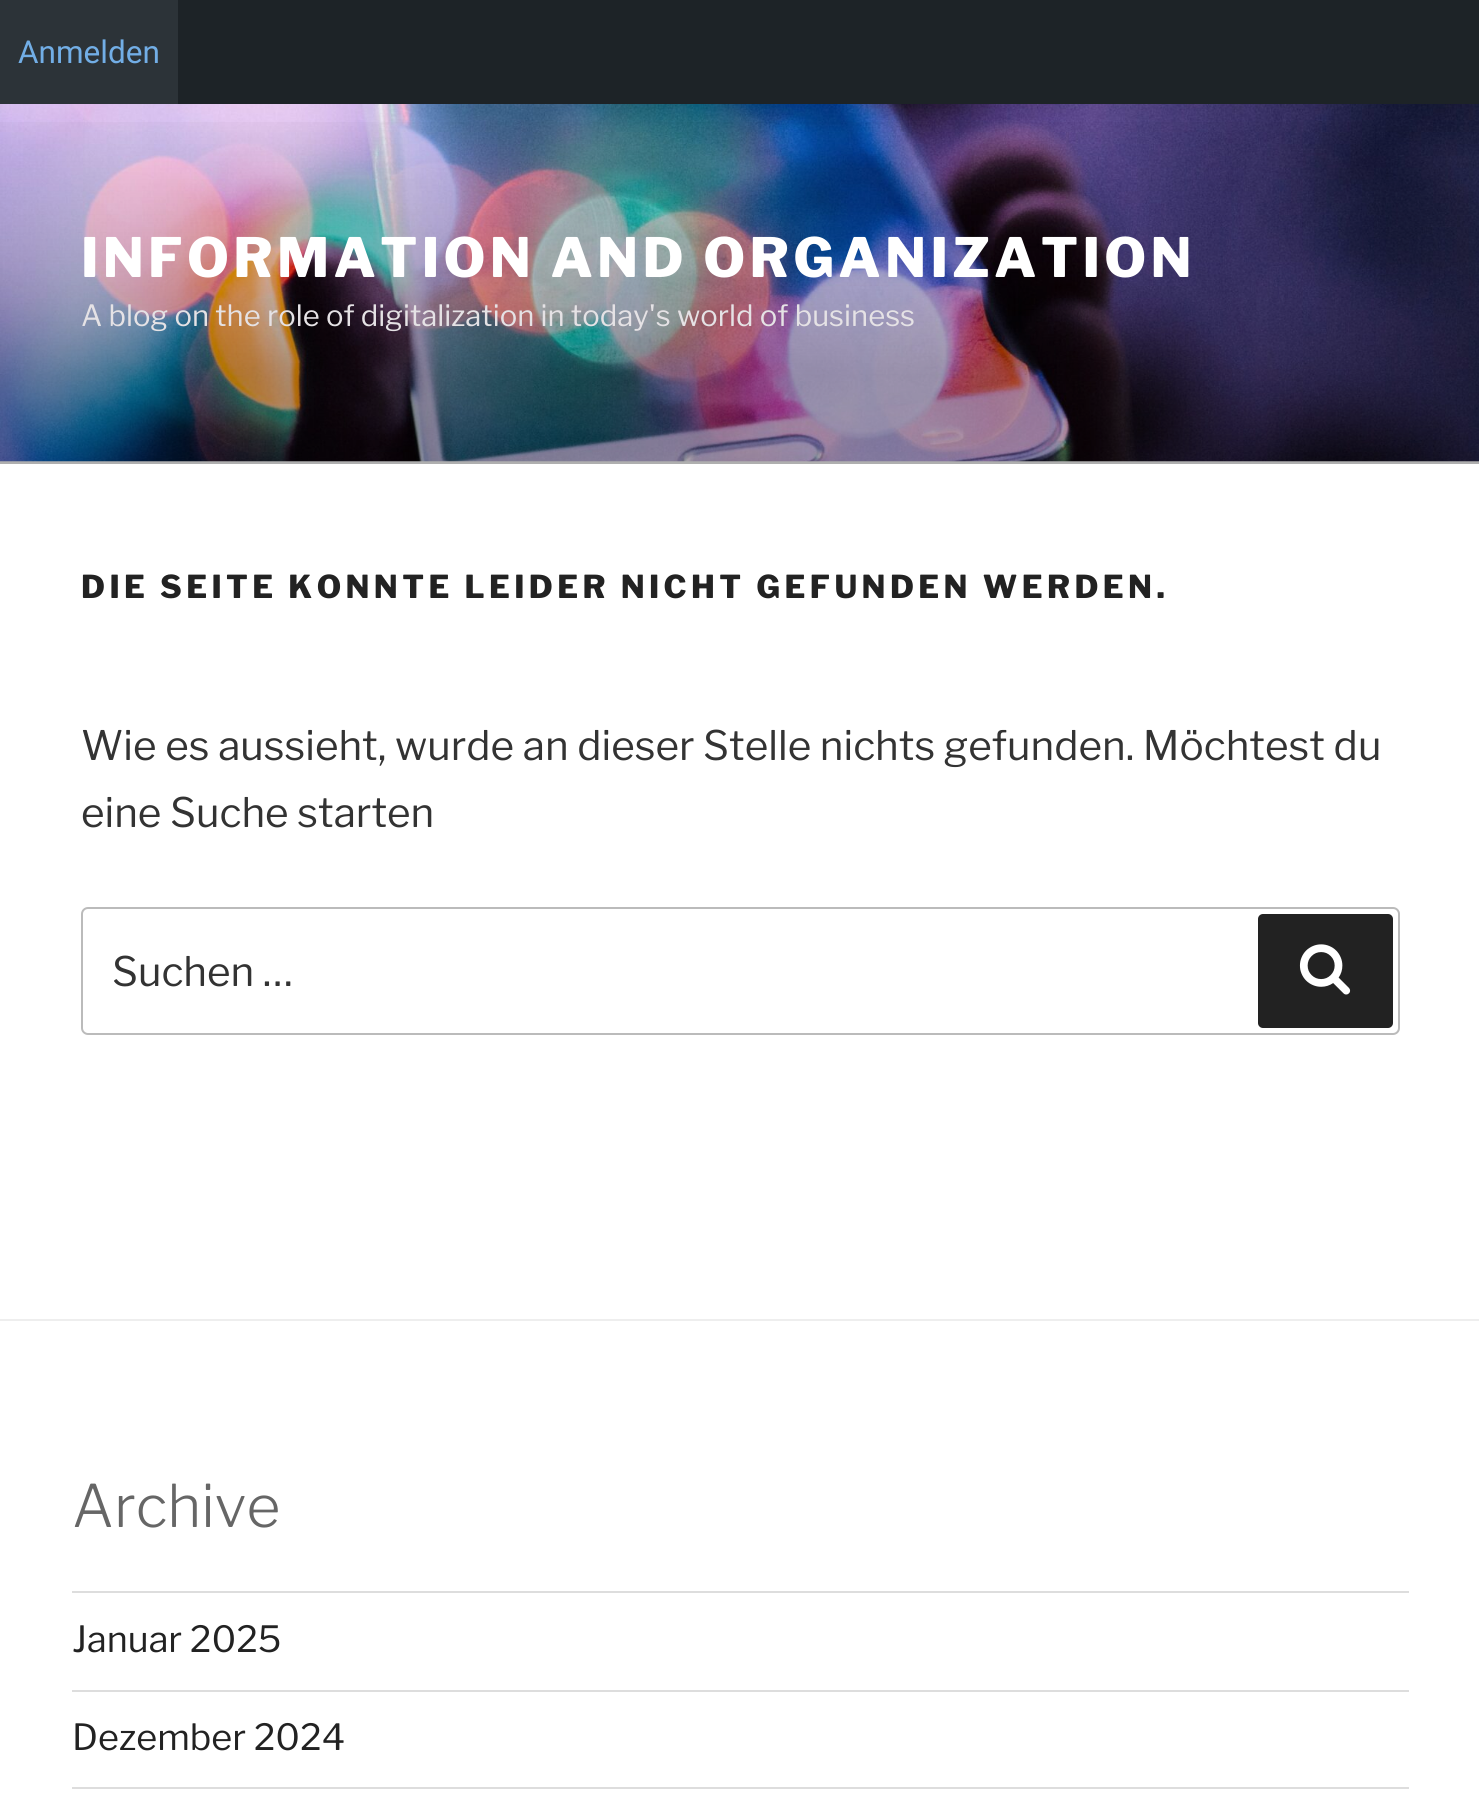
import math
import cairo



def draw_spaced(context, x, y, s, letter, word):
    context.move_to(x, y)
    for ch in s:
        context.show_text(ch)
        context.rel_move_to(letter + word * (ch == ' '), 0)


def rounded_rect(context, x, y, w, h, r):
    context.new_sub_path()
    for i, (u, v) in enumerate([(x + w - r, y + h - r), (x + r, y + h - r), (x + r, y + r), (x + w - r, y + r)]):
        context.arc(u, v, r, i * math.pi / 2, (i + 1) * math.pi / 2)
    context.close_path()


def draw_image(context, path, x, y, w, h):
    context.save()
    context.set_source_surface(cairo.ImageSurface.create_from_png(path), x, y)
    context.rectangle(x, y, w, h)
    context.fill()
    context.restore()


def draw(context):
    context.set_source_rgb(1, 1, 1)
    context.paint()
    context.set_source_rgb(29 / 255, 35 / 255, 39 / 255)
    context.rectangle(178, 0, 1301, 104)
    context.fill()
    context.set_source_rgb(44 / 255, 51 / 255, 56 / 255)
    context.rectangle(0, 0, 178, 104)
    context.fill()
    context.set_source_rgb(250 / 255, 250 / 255, 250 / 255)
    context.rectangle(0, 461, 1479, 3)
    context.fill()
    draw_image(context, "images/1.png", 0, 104, 1479, 358)
    gradient = cairo.LinearGradient(740, 103, 740, 464)
    gradient.add_color_stop_rgba(0, 0, 0, 0, 0)
    gradient.add_color_stop_rgba(0.75, 0, 0, 0, 0.3)
    gradient.add_color_stop_rgba(1, 0, 0, 0, 0.3)
    context.set_source(gradient)
    context.rectangle(0, 122, 1479, 342)
    context.fill()
    rounded_rect(context, 82, 908, 1317, 126, 6)
    context.set_source_rgb(187 / 255, 187 / 255, 187 / 255)
    context.stroke()
    context.set_source_rgb(34 / 255, 34 / 255, 34 / 255)
    rounded_rect(context, 1258, 914, 135, 114, 5)
    context.fill()
    draw_image(context, "images/2.png", 1299, 944, 52, 51)
    context.set_source_rgb(238 / 255, 238 / 255, 238 / 255)
    context.rectangle(0, 1319, 1479, 2)
    context.fill()
    context.set_source_rgb(221 / 255, 221 / 255, 221 / 255)
    context.rectangle(72, 1591, 1337, 2)
    context.fill()
    context.rectangle(72, 1690, 1337, 2)
    context.fill()
    context.rectangle(72, 1787, 1337, 2)
    context.fill()
    context.select_font_face("Roboto")
    context.set_font_size(31.5)
    context.set_source_rgb(114 / 255, 174 / 255, 230 / 255)
    context.move_to(18, 63)
    context.show_text("Anmelden")
    context.select_font_face("Libre Franklin Thin")
    context.set_font_size(54)
    context.set_source_rgb(1, 1, 1)
    draw_spaced(context, 81, 277, "INFORMATION AND ORGANIZATION", 4.3, 0)
    context.select_font_face("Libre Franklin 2 Thin")
    context.set_font_size(29.25)
    context.set_source_rgb(229 / 255, 226 / 255, 229 / 255)
    context.move_to(81, 326)
    context.show_text("A blog on the role of digitalization in today's world of business")
    context.select_font_face("Libre Franklin Thin")
    context.set_font_size(31.5)
    context.set_source_rgb(34 / 255, 34 / 255, 34 / 255)
    draw_spaced(context, 81, 598, "DIE SEITE KONNTE LEIDER NICHT GEFUNDEN WERDEN.", 4.4, 0)
    context.select_font_face("Libre Franklin 2 Thin")
    context.set_font_size(40.5)
    context.set_source_rgb(51 / 255, 51 / 255, 51 / 255)
    context.move_to(81, 760)
    context.show_text("Wie es aussieht, wurde an dieser Stelle nichts gefunden. Möchtest du")
    context.move_to(81, 827)
    context.show_text("eine Suche starten")
    context.move_to(112, 986)
    context.show_text("Suchen …")
    context.select_font_face("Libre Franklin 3 Thin")
    context.set_font_size(58.5)
    context.set_source_rgb(102 / 255, 102 / 255, 102 / 255)
    context.move_to(72, 1527)
    context.show_text("Archive")
    context.select_font_face("Libre Franklin 2 Thin")
    context.set_font_size(36)
    context.set_source_rgb(34 / 255, 34 / 255, 34 / 255)
    context.move_to(72, 1652)
    context.show_text("Januar 2025")
    context.move_to(72, 1750)
    context.show_text("Dezember 2024")


surface = cairo.ImageSurface(cairo.Format.RGB24, 1479, 1800)
context = cairo.Context(surface)
options = cairo.FontOptions()
options.set_hint_metrics(cairo.HintMetrics.OFF)
options.set_hint_style(cairo.HintStyle.NONE)
context.set_font_options(options)
context.set_miter_limit(4)
draw(context)
surface.write_to_png("out.png")
